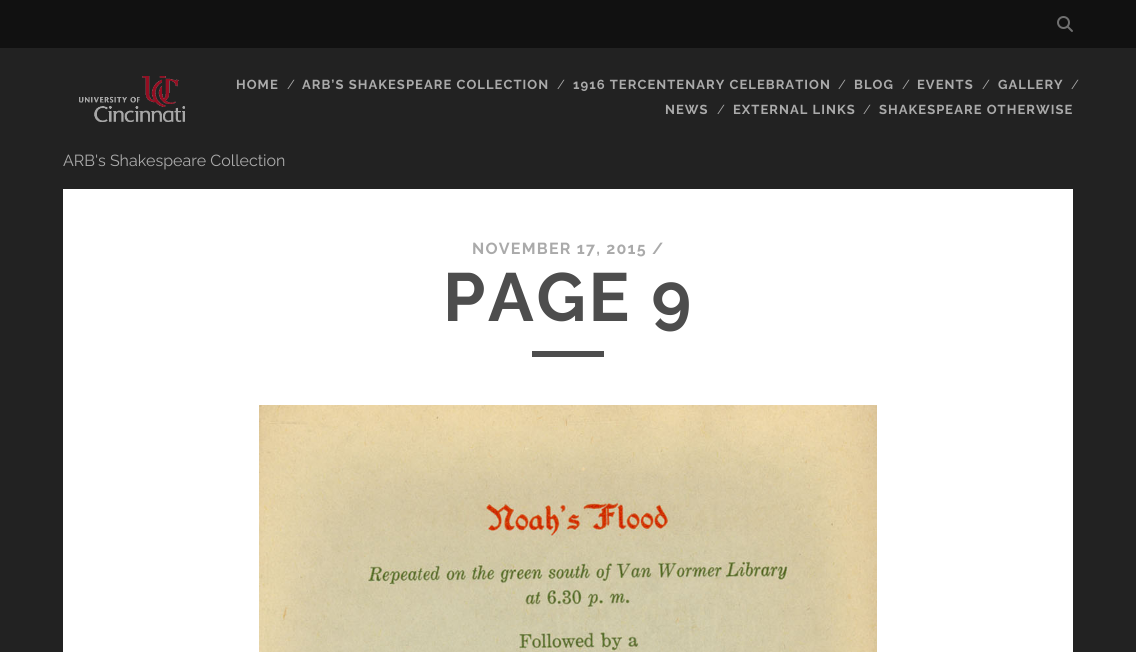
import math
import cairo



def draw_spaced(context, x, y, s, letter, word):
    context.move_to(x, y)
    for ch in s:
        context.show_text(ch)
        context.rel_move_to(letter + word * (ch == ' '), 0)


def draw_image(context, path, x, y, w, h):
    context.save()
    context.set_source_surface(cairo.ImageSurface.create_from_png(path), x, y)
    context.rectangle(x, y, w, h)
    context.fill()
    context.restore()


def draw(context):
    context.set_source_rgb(34 / 255, 34 / 255, 34 / 255)
    context.paint()
    context.set_source_rgb(17 / 255, 17 / 255, 17 / 255)
    context.rectangle(0, 0, 1136, 48)
    context.fill()
    draw_image(context, "images/1.png", 1057, 16, 16, 16)
    draw_image(context, "images/2.png", 79, 76, 106, 46)
    context.set_source_rgb(1, 1, 1)
    context.rectangle(63, 189, 1010, 463)
    context.fill()
    context.set_source_rgb(77 / 255, 77 / 255, 77 / 255)
    context.rectangle(532, 351, 72, 6)
    context.fill()
    draw_image(context, "images/3.png", 259, 405, 618, 247)
    context.select_font_face("Raleway", cairo.FontSlant.NORMAL, cairo.FontWeight.BOLD)
    context.set_font_size(13)
    context.set_source_rgb(170 / 255, 170 / 255, 170 / 255)
    draw_spaced(context, 236, 89, "HOME", 1.05, 0)
    context.select_font_face("Raleway")
    context.move_to(287, 89)
    context.show_text("/")
    context.select_font_face("Raleway", cairo.FontSlant.NORMAL, cairo.FontWeight.BOLD)
    draw_spaced(context, 302, 89, "ARB’S SHAKESPEARE COLLECTION", 1.05, 0)
    context.select_font_face("Raleway")
    context.move_to(557, 89)
    context.show_text("/")
    context.select_font_face("Raleway", cairo.FontSlant.NORMAL, cairo.FontWeight.BOLD)
    draw_spaced(context, 573, 89, "1916 TERCENTENARY CELEBRATION", 1.05, 0)
    context.select_font_face("Raleway")
    context.move_to(838, 89)
    context.show_text("/")
    context.select_font_face("Raleway", cairo.FontSlant.NORMAL, cairo.FontWeight.BOLD)
    draw_spaced(context, 854, 89, "BLOG", 1.05, 0)
    context.select_font_face("Raleway")
    context.move_to(902, 89)
    context.show_text("/")
    context.select_font_face("Raleway", cairo.FontSlant.NORMAL, cairo.FontWeight.BOLD)
    draw_spaced(context, 917, 89, "EVENTS", 1.05, 0)
    context.select_font_face("Raleway")
    context.move_to(982, 89)
    context.show_text("/")
    context.select_font_face("Raleway", cairo.FontSlant.NORMAL, cairo.FontWeight.BOLD)
    draw_spaced(context, 998, 89, "GALLERY", 1.05, 0)
    context.select_font_face("Raleway")
    context.move_to(1071, 89)
    context.show_text("/")
    context.select_font_face("Raleway", cairo.FontSlant.NORMAL, cairo.FontWeight.BOLD)
    draw_spaced(context, 665, 114, "NEWS", 1.05, 0)
    context.select_font_face("Raleway")
    context.move_to(717, 114)
    context.show_text("/")
    context.select_font_face("Raleway", cairo.FontSlant.NORMAL, cairo.FontWeight.BOLD)
    draw_spaced(context, 733, 114, "EXTERNAL LINKS", 1.05, 0)
    context.select_font_face("Raleway")
    context.move_to(863, 114)
    context.show_text("/")
    context.select_font_face("Raleway", cairo.FontSlant.NORMAL, cairo.FontWeight.BOLD)
    draw_spaced(context, 879, 114, "SHAKESPEARE OTHERWISE", 1.05, 0)
    context.select_font_face("Raleway")
    context.set_font_size(16)
    context.move_to(63, 166)
    context.show_text("ARB's Shakespeare Collection")
    context.select_font_face("Raleway", cairo.FontSlant.NORMAL, cairo.FontWeight.BOLD)
    draw_spaced(context, 472, 254, "NOVEMBER 17, 2015 /", 1.25, 0)
    context.set_font_size(68)
    context.set_source_rgb(77 / 255, 77 / 255, 77 / 255)
    draw_spaced(context, 443, 321, "PAGE 9", 2.75, 0)


surface = cairo.ImageSurface(cairo.Format.RGB24, 1136, 652)
context = cairo.Context(surface)
options = cairo.FontOptions()
options.set_hint_metrics(cairo.HintMetrics.OFF)
options.set_hint_style(cairo.HintStyle.NONE)
context.set_font_options(options)
context.set_miter_limit(4)
draw(context)
surface.write_to_png("out.png")
